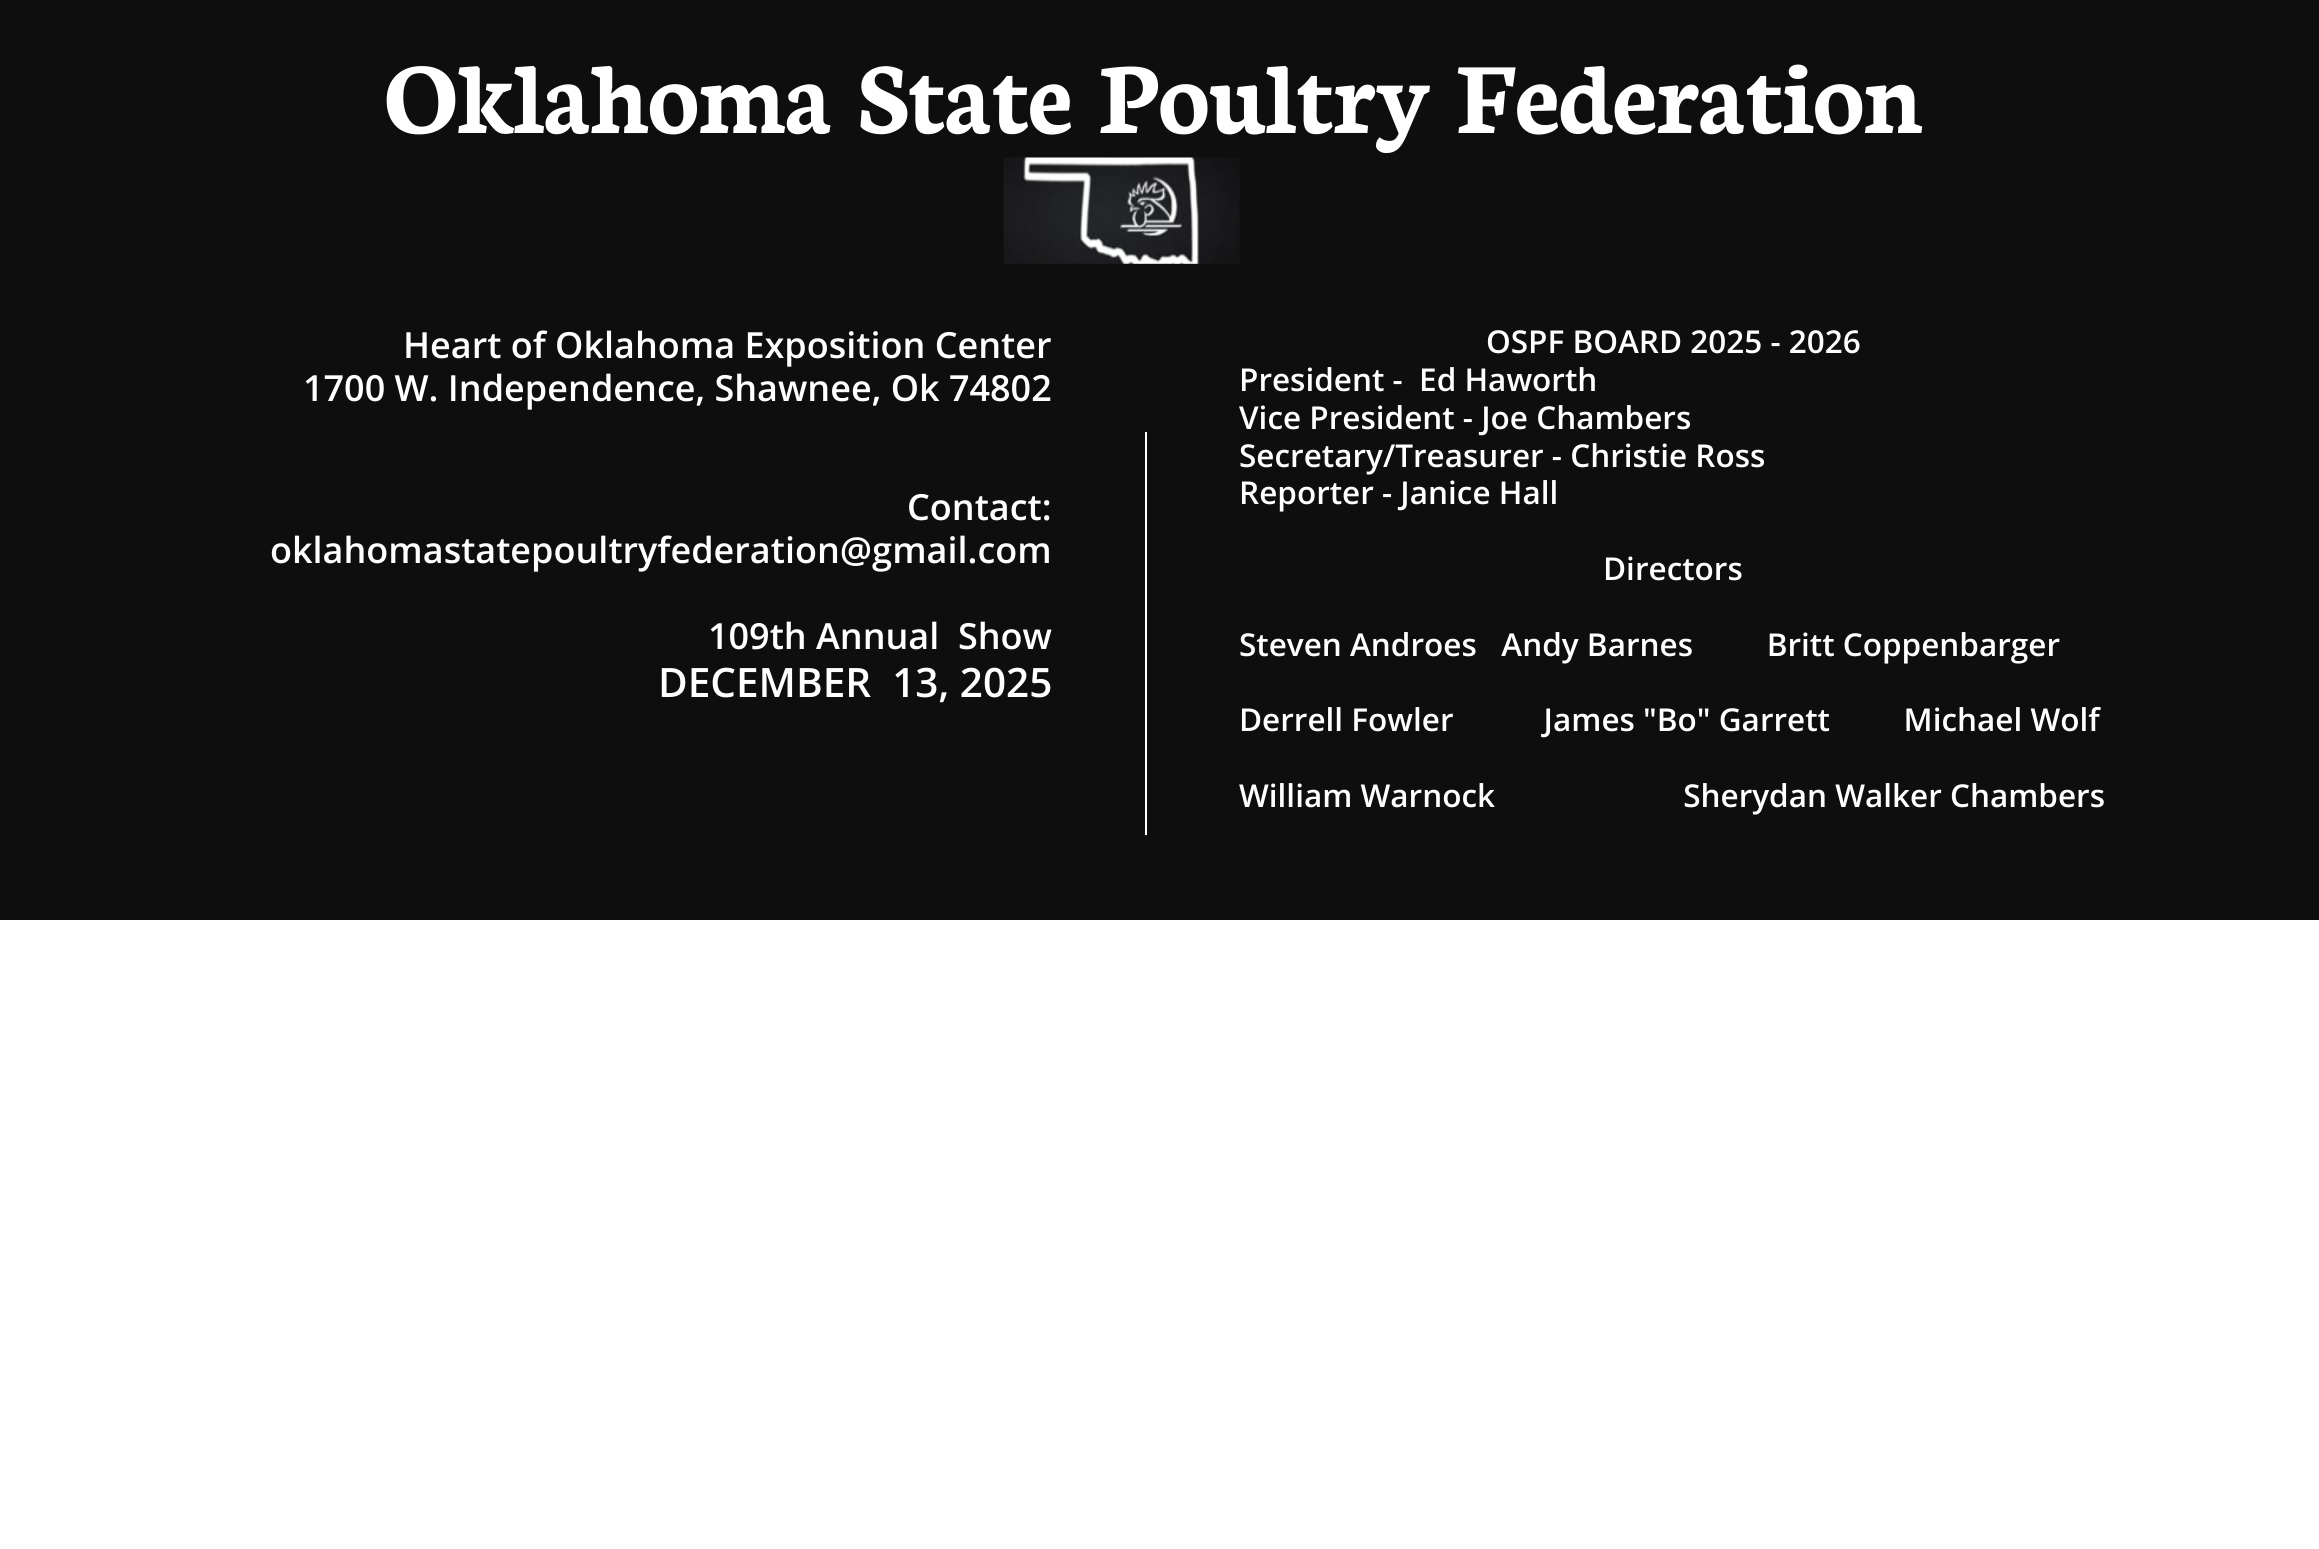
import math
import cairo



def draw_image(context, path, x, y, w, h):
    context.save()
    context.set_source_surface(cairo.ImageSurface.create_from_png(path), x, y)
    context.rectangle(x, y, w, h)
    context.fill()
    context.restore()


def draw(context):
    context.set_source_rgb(1, 1, 1)
    context.paint()
    context.set_source_rgb(14 / 255, 14 / 255, 14 / 255)
    context.rectangle(0, 0, 2319, 920)
    context.fill()
    draw_image(context, "images/1.png", 1003, 157, 237, 107)
    context.set_source_rgb(1, 1, 1)
    context.rectangle(1145, 432, 2, 403)
    context.fill()
    context.select_font_face("Neuton", cairo.FontSlant.NORMAL, cairo.FontWeight.BOLD)
    context.set_font_size(108)
    context.move_to(384, 133)
    context.show_text("Oklahoma State Poultry Federation")
    context.select_font_face("Open Sans SemiBold")
    context.set_font_size(36)
    context.move_to(403, 358)
    context.show_text("Heart of Oklahoma Exposition Center")
    context.move_to(303, 401)
    context.show_text("1700 W. Independence, Shawnee, Ok 74802")
    context.move_to(907, 520)
    context.show_text("Contact:")
    context.move_to(270, 563)
    context.show_text("oklahomastatepoultryfederation@gmail.com")
    context.move_to(708, 649)
    context.show_text("109th Annual  Show")
    context.set_font_size(40.5)
    context.move_to(658, 697)
    context.show_text("DECEMBER  13, 2025")
    context.set_font_size(31.5)
    context.move_to(1486, 353)
    context.show_text("OSPF BOARD 2025 - 2026")
    context.move_to(1239, 391)
    context.show_text("President -  Ed Haworth")
    context.move_to(1239, 429)
    context.show_text("Vice President - Joe Chambers")
    context.move_to(1239, 467)
    context.show_text("Secretary/Treasurer - Christie Ross")
    context.move_to(1239, 504)
    context.show_text("Reporter - Janice Hall")
    context.move_to(1603, 580)
    context.show_text("Directors")
    context.move_to(1239, 656)
    context.show_text("Steven Androes   Andy Barnes         Britt Coppenbarger")
    context.move_to(1239, 731)
    context.show_text("Derrell Fowler           James \"Bo\" Garrett         Michael Wolf")
    context.move_to(1239, 807)
    context.show_text("William Warnock                       Sherydan Walker Chambers")


surface = cairo.ImageSurface(cairo.Format.RGB24, 2319, 1549)
context = cairo.Context(surface)
options = cairo.FontOptions()
options.set_hint_metrics(cairo.HintMetrics.OFF)
options.set_hint_style(cairo.HintStyle.NONE)
context.set_font_options(options)
context.set_miter_limit(4)
draw(context)
surface.write_to_png("out.png")
